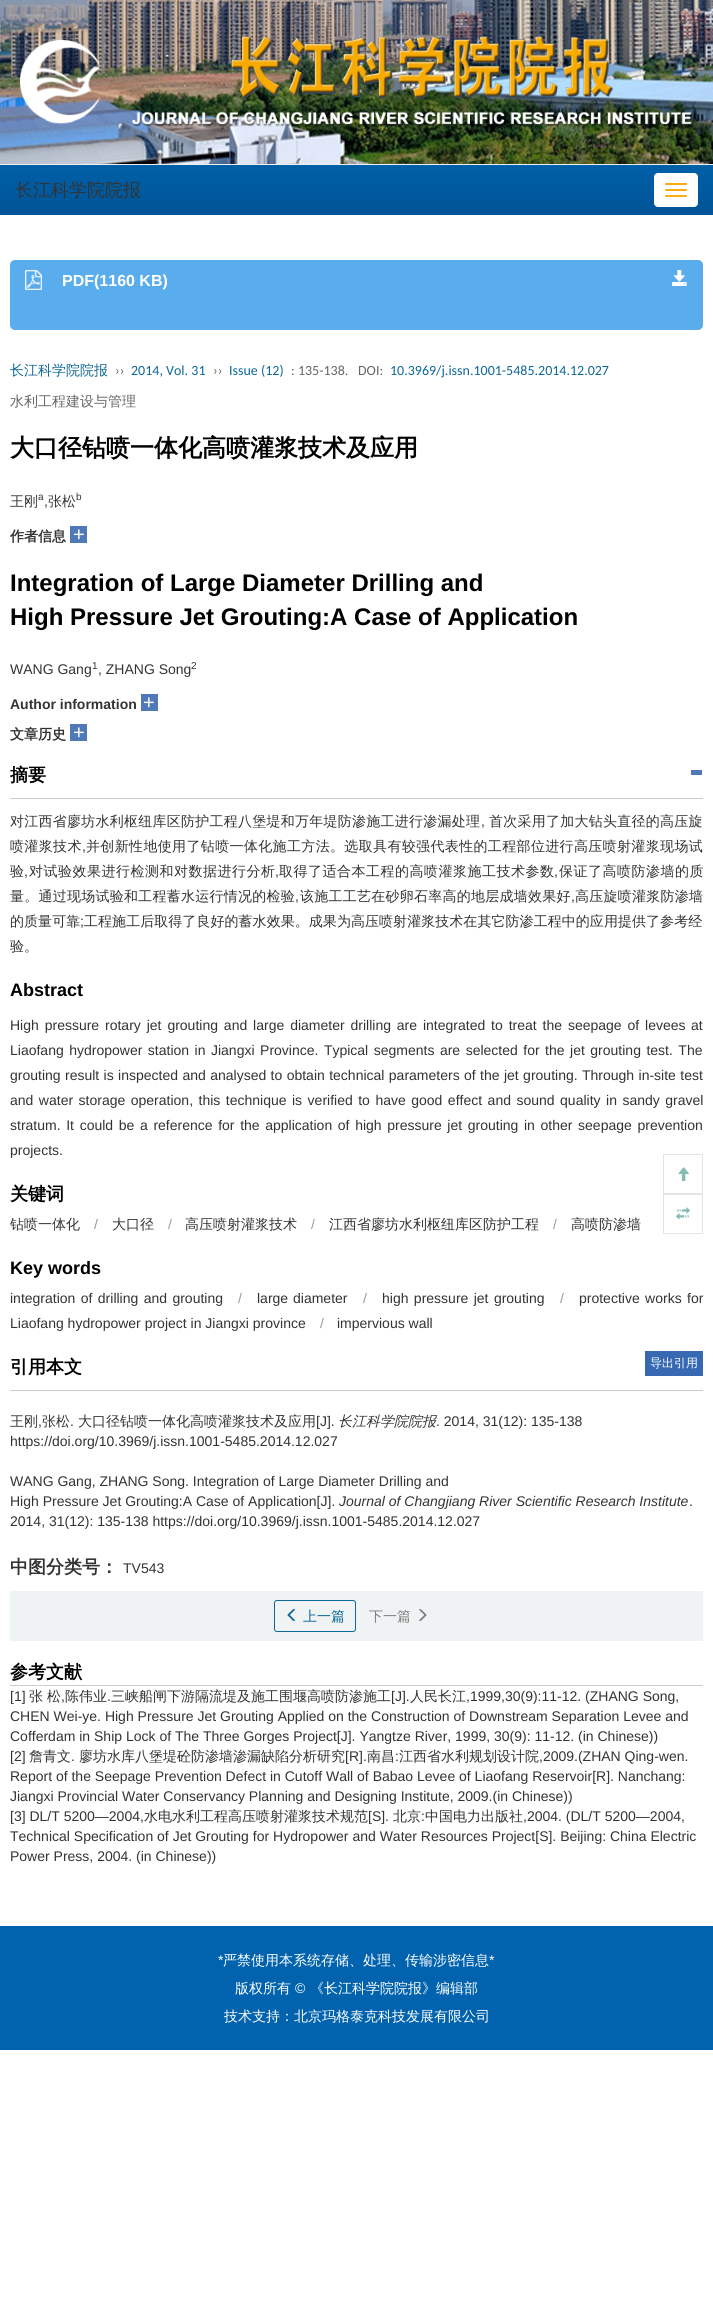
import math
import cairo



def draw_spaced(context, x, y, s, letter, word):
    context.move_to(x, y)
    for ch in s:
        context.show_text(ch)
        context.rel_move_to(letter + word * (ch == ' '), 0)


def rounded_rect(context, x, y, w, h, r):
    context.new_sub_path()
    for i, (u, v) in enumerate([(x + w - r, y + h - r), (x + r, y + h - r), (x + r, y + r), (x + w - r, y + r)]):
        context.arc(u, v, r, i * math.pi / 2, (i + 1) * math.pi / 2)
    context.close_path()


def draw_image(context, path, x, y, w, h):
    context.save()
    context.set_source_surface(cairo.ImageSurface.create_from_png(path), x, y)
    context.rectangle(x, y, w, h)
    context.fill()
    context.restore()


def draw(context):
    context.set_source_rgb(1, 1, 1)
    context.paint()
    draw_image(context, "images/1.png", 0, 0, 713, 164)
    draw_image(context, "images/2.png", 20, 35, 673, 92)
    context.set_source_rgb(238 / 255, 238 / 255, 238 / 255)
    context.rectangle(0, 164, 713, 1)
    context.fill()
    gradient = cairo.LinearGradient(357, 165, 357, 215)
    gradient.add_color_stop_rgba(0, 0, 96 / 255, 168 / 255, 1)
    gradient.add_color_stop_rgba(1, 0, 84 / 255, 150 / 255, 1)
    context.set_source(gradient)
    context.rectangle(0, 165, 713, 50)
    context.fill()
    context.set_source_rgb(1, 1, 1)
    rounded_rect(context, 654.5, 173.5, 43, 33, 3.5)
    context.fill_preserve()
    context.set_line_width(1)
    context.stroke()
    context.set_source_rgb(248 / 255, 174 / 255, 13 / 255)
    rounded_rect(context, 665, 183, 22, 2, 1)
    context.fill()
    rounded_rect(context, 665, 189, 22, 2, 1)
    context.fill()
    rounded_rect(context, 665, 195, 22, 2, 1)
    context.fill()
    context.set_source_rgb(90 / 255, 173 / 255, 236 / 255)
    rounded_rect(context, 10, 260, 693, 70, 5)
    context.fill()
    draw_image(context, "images/3.png", 25, 270, 17, 20)
    draw_image(context, "images/4.png", 672, 270, 15, 16)
    context.set_source_rgb(80 / 255, 121 / 255, 183 / 255)
    context.rectangle(70, 526, 17, 17)
    context.fill()
    context.rectangle(141, 694, 17, 17)
    context.fill()
    context.rectangle(70, 724, 17, 17)
    context.fill()
    context.set_source_rgb(204 / 255, 204 / 255, 204 / 255)
    context.rectangle(10, 798, 693, 1)
    context.fill()
    context.set_source_rgb(80 / 255, 121 / 255, 183 / 255)
    context.rectangle(691, 770, 11, 5)
    context.fill()
    context.set_source_rgb(204 / 255, 204 / 255, 204 / 255)
    context.rectangle(10, 1390, 693, 1)
    context.fill()
    context.set_source_rgb(55 / 255, 105 / 255, 179 / 255)
    context.rectangle(645, 1351, 58, 25)
    context.fill()
    context.set_source_rgb(240 / 255, 243 / 255, 244 / 255)
    context.rectangle(10, 1591, 693, 50)
    context.fill()
    rounded_rect(context, 274.5, 1600.5, 81, 31, 2.5)
    context.set_source_rgb(13 / 255, 103 / 255, 151 / 255)
    context.stroke()
    draw_image(context, "images/5.png", 287, 1609, 9, 12)
    draw_image(context, "images/6.png", 418, 1609, 9, 12)
    context.set_source_rgb(204 / 255, 204 / 255, 204 / 255)
    context.rectangle(10, 1685, 693, 1)
    context.fill()
    context.rectangle(663.5, 1154.5, 39, 39)
    context.set_source_rgb(226 / 255, 230 / 255, 232 / 255)
    context.stroke()
    draw_image(context, "images/7.png", 678, 1167, 11, 14)
    context.rectangle(663.5, 1194.5, 39, 39)
    context.stroke()
    draw_image(context, "images/8.png", 676, 1207, 14, 13)
    context.set_source_rgb(1 / 255, 99 / 255, 174 / 255)
    context.rectangle(0, 1926, 713, 124)
    context.fill()
    context.select_font_face("WenQuanYi Zen Hei Medium")
    context.set_font_size(18)
    context.set_source_rgb(51 / 255, 51 / 255, 51 / 255)
    context.move_to(15, 196)
    context.show_text("长江科学院院报")
    context.select_font_face("Liberation Sans", cairo.FontSlant.NORMAL, cairo.FontWeight.BOLD)
    context.set_font_size(16)
    context.set_source_rgb(1, 1, 1)
    context.move_to(62, 286)
    context.show_text("PDF(1160 KB)")
    context.select_font_face("WenQuanYi Zen Hei Medium")
    context.set_font_size(14)
    context.set_source_rgb(13 / 255, 103 / 255, 151 / 255)
    context.move_to(10, 375)
    context.show_text("长江科学院院报")
    context.select_font_face("Carlito")
    context.set_source_rgb(102 / 255, 102 / 255, 102 / 255)
    context.move_to(115, 375)
    context.show_text("››")
    context.set_source_rgb(13 / 255, 103 / 255, 151 / 255)
    context.move_to(131, 375)
    context.show_text("2014, Vol. 31")
    context.set_source_rgb(102 / 255, 102 / 255, 102 / 255)
    context.move_to(213, 375)
    context.show_text("››")
    context.set_source_rgb(13 / 255, 103 / 255, 151 / 255)
    context.move_to(229, 375)
    context.show_text("Issue (12)")
    context.set_source_rgb(102 / 255, 102 / 255, 102 / 255)
    context.move_to(291, 375)
    context.show_text(": 135-138.")
    context.move_to(358, 375)
    context.show_text("DOI:")
    context.set_source_rgb(13 / 255, 103 / 255, 151 / 255)
    context.move_to(390, 375)
    context.show_text("10.3969/j.issn.1001-5485.2014.12.027")
    context.select_font_face("WenQuanYi Zen Hei Medium")
    context.set_source_rgb(102 / 255, 102 / 255, 102 / 255)
    context.move_to(10, 406)
    context.show_text("水利工程建设与管理")
    context.select_font_face("WenQuanYi Zen Hei", cairo.FontSlant.NORMAL, cairo.FontWeight.BOLD)
    context.set_font_size(24)
    context.set_source_rgb(0, 0, 0)
    context.move_to(10, 456)
    context.show_text("大口径钻喷一体化高喷灌浆技术及应用")
    context.select_font_face("WenQuanYi Zen Hei Medium")
    context.set_font_size(14)
    context.set_source_rgb(51 / 255, 51 / 255, 51 / 255)
    context.move_to(10, 506)
    context.show_text("王刚")
    context.select_font_face("Liberation Sans")
    context.set_font_size(10)
    context.move_to(38, 500)
    context.show_text("a")
    context.set_font_size(14)
    context.move_to(44, 506)
    context.show_text(",")
    context.select_font_face("WenQuanYi Zen Hei Medium")
    context.move_to(48, 506)
    context.show_text("张松")
    context.select_font_face("Liberation Sans")
    context.set_font_size(10)
    context.move_to(76, 500)
    context.show_text("b")
    context.select_font_face("WenQuanYi Zen Hei", cairo.FontSlant.NORMAL, cairo.FontWeight.BOLD)
    context.set_font_size(14)
    context.move_to(10, 541)
    context.show_text("作者信息")
    context.select_font_face("Liberation Sans")
    context.set_font_size(20)
    context.set_source_rgb(1, 1, 1)
    context.move_to(73, 541)
    context.show_text("+")
    context.select_font_face("Liberation Sans", cairo.FontSlant.NORMAL, cairo.FontWeight.BOLD)
    context.set_font_size(24)
    context.set_source_rgb(0, 0, 0)
    context.move_to(10, 591)
    context.show_text("Integration of Large Diameter Drilling and")
    context.move_to(10, 625)
    context.show_text("High Pressure Jet Grouting:A Case of Application")
    context.select_font_face("Liberation Sans")
    context.set_font_size(14)
    context.set_source_rgb(51 / 255, 51 / 255, 51 / 255)
    context.move_to(10, 674)
    context.show_text("WANG Gang")
    context.set_font_size(10)
    context.move_to(92, 669)
    context.show_text("1")
    context.set_font_size(14)
    context.move_to(98, 674)
    context.show_text(", ZHANG Song")
    context.set_font_size(10)
    context.move_to(191, 669)
    context.show_text("2")
    context.select_font_face("Liberation Sans", cairo.FontSlant.NORMAL, cairo.FontWeight.BOLD)
    context.set_font_size(14)
    context.move_to(10, 709)
    context.show_text("Author information")
    context.select_font_face("Liberation Sans")
    context.set_font_size(20)
    context.set_source_rgb(1, 1, 1)
    context.move_to(143, 709)
    context.show_text("+")
    context.select_font_face("WenQuanYi Zen Hei", cairo.FontSlant.NORMAL, cairo.FontWeight.BOLD)
    context.set_font_size(14)
    context.set_source_rgb(51 / 255, 51 / 255, 51 / 255)
    context.move_to(10, 739)
    context.show_text("文章历史")
    context.select_font_face("Liberation Sans")
    context.set_font_size(20)
    context.set_source_rgb(1, 1, 1)
    context.move_to(73, 739)
    context.show_text("+")
    context.select_font_face("WenQuanYi Zen Hei", cairo.FontSlant.NORMAL, cairo.FontWeight.BOLD)
    context.set_font_size(18)
    context.set_source_rgb(0, 0, 0)
    context.move_to(10, 781)
    context.show_text("摘要")
    context.select_font_face("WenQuanYi Zen Hei Medium")
    context.set_font_size(14)
    context.set_source_rgb(51 / 255, 51 / 255, 51 / 255)
    draw_spaced(context, 10, 826, "对江西省廖坊水利枢纽库区防护工程八堡堤和万年堤防渗施工进行渗漏处理", 0.25, 0)
    context.select_font_face("Liberation Sans")
    draw_spaced(context, 481, 826, ",", 0.25, 0)
    context.select_font_face("WenQuanYi Zen Hei Medium")
    draw_spaced(context, 489, 826, "首次采用了加大钻头直径的高压旋", 0.25, 0)
    draw_spaced(context, 10, 851, "喷灌浆技术", 0.35, 0)
    context.select_font_face("Liberation Sans")
    draw_spaced(context, 82, 851, ",", 0.35, 0)
    context.select_font_face("WenQuanYi Zen Hei Medium")
    draw_spaced(context, 86, 851, "并创新性地使用了钻喷一体化施工方法。选取具有较强代表性的工程部位进行高压喷射灌浆现场试", 0.35, 0)
    draw_spaced(context, 10, 876, "验", 0.5, 0)
    context.select_font_face("Liberation Sans")
    draw_spaced(context, 24, 876, ",", 0.5, 0)
    context.select_font_face("WenQuanYi Zen Hei Medium")
    draw_spaced(context, 29, 876, "对试验效果进行检测和对数据进行分析", 0.5, 0)
    context.select_font_face("Liberation Sans")
    draw_spaced(context, 275, 876, ",", 0.5, 0)
    context.select_font_face("WenQuanYi Zen Hei Medium")
    draw_spaced(context, 279, 876, "取得了适合本工程的高喷灌浆施工技术参数", 0.5, 0)
    context.select_font_face("Liberation Sans")
    draw_spaced(context, 554, 876, ",", 0.5, 0)
    context.select_font_face("WenQuanYi Zen Hei Medium")
    draw_spaced(context, 559, 876, "保证了高喷防渗墙的质", 0.5, 0)
    draw_spaced(context, 10, 901, "量。通过现场试验和工程蓄水运行情况的检验", 0.25, 0)
    context.select_font_face("Liberation Sans")
    draw_spaced(context, 295, 901, ",", 0.25, 0)
    context.select_font_face("WenQuanYi Zen Hei Medium")
    draw_spaced(context, 300, 901, "该施工工艺在砂卵石率高的地层成墙效果好", 0.25, 0)
    context.select_font_face("Liberation Sans")
    draw_spaced(context, 571, 901, ",", 0.25, 0)
    context.select_font_face("WenQuanYi Zen Hei Medium")
    draw_spaced(context, 575, 901, "高压旋喷灌浆防渗墙", 0.25, 0)
    draw_spaced(context, 10, 926, "的质量可靠", 0.05, 0)
    context.select_font_face("Liberation Sans")
    draw_spaced(context, 80, 926, ";", 0.05, 0)
    context.select_font_face("WenQuanYi Zen Hei Medium")
    draw_spaced(context, 84, 926, "工程施工后取得了良好的蓄水效果。成果为高压喷射灌浆技术在其它防渗工程中的应用提供了参考经", 0.05, 0)
    context.move_to(10, 951)
    context.show_text("验。")
    context.select_font_face("Liberation Sans", cairo.FontSlant.NORMAL, cairo.FontWeight.BOLD)
    context.set_font_size(18)
    context.set_source_rgb(0, 0, 0)
    context.move_to(10, 996)
    context.show_text("Abstract")
    context.select_font_face("Liberation Sans")
    context.set_font_size(14)
    context.set_source_rgb(51 / 255, 51 / 255, 51 / 255)
    draw_spaced(context, 10, 1030, "High pressure rotary jet grouting and large diameter drilling are integrated to treat the seepage of levees", 0, 2)
    context.move_to(691, 1030)
    context.show_text("at")
    draw_spaced(context, 10, 1055, "Liaofang hydropower station in Jiangxi Province. Typical segments are selected for the jet grouting test. The", 0, 1.6)
    draw_spaced(context, 10, 1080, "grouting result is inspected and analysed to obtain technical parameters of the jet grouting. Through in-site test", 0, 0.5)
    draw_spaced(context, 10, 1105, "and water storage operation, this technique is verified to have good effect and sound quality in sandy gravel", 0, 1.6)
    draw_spaced(context, 10, 1130, "stratum. It could be a reference for the application of high pressure jet grouting in other seepage prevention", 0, 1.75)
    context.move_to(10, 1155)
    context.show_text("projects.")
    context.select_font_face("WenQuanYi Zen Hei", cairo.FontSlant.NORMAL, cairo.FontWeight.BOLD)
    context.set_font_size(18)
    context.set_source_rgb(0, 0, 0)
    context.move_to(10, 1200)
    context.show_text("关键词")
    context.select_font_face("WenQuanYi Zen Hei Medium")
    context.set_font_size(14)
    context.set_source_rgb(51 / 255, 51 / 255, 51 / 255)
    context.move_to(10, 1229)
    context.show_text("钻喷一体化")
    context.select_font_face("Liberation Sans")
    context.set_source_rgb(153 / 255, 153 / 255, 153 / 255)
    context.move_to(94, 1229)
    context.show_text("/")
    context.select_font_face("WenQuanYi Zen Hei Medium")
    context.set_source_rgb(51 / 255, 51 / 255, 51 / 255)
    context.move_to(112, 1229)
    context.show_text("大口径")
    context.select_font_face("Liberation Sans")
    context.set_source_rgb(153 / 255, 153 / 255, 153 / 255)
    context.move_to(168, 1229)
    context.show_text("/")
    context.select_font_face("WenQuanYi Zen Hei Medium")
    context.set_source_rgb(51 / 255, 51 / 255, 51 / 255)
    context.move_to(185, 1229)
    context.show_text("高压喷射灌浆技术")
    context.select_font_face("Liberation Sans")
    context.set_source_rgb(153 / 255, 153 / 255, 153 / 255)
    context.move_to(311, 1229)
    context.show_text("/")
    context.select_font_face("WenQuanYi Zen Hei Medium")
    context.set_source_rgb(51 / 255, 51 / 255, 51 / 255)
    context.move_to(329, 1229)
    context.show_text("江西省廖坊水利枢纽库区防护工程")
    context.select_font_face("Liberation Sans")
    context.set_source_rgb(153 / 255, 153 / 255, 153 / 255)
    context.move_to(553, 1229)
    context.show_text("/")
    context.select_font_face("WenQuanYi Zen Hei Medium")
    context.set_source_rgb(51 / 255, 51 / 255, 51 / 255)
    context.move_to(571, 1229)
    context.show_text("高喷防渗墙")
    context.select_font_face("Liberation Sans", cairo.FontSlant.NORMAL, cairo.FontWeight.BOLD)
    context.set_font_size(18)
    context.set_source_rgb(0, 0, 0)
    context.move_to(10, 1274)
    context.show_text("Key words")
    context.select_font_face("Liberation Sans")
    context.set_font_size(14)
    context.set_source_rgb(51 / 255, 51 / 255, 51 / 255)
    draw_spaced(context, 10, 1303, "integration of drilling and grouting", 0, 1.5)
    context.set_source_rgb(153 / 255, 153 / 255, 153 / 255)
    context.move_to(238, 1303)
    context.show_text("/")
    context.set_source_rgb(51 / 255, 51 / 255, 51 / 255)
    draw_spaced(context, 257, 1303, "large diameter", 0, 1)
    context.set_source_rgb(153 / 255, 153 / 255, 153 / 255)
    context.move_to(363, 1303)
    context.show_text("/")
    context.set_source_rgb(51 / 255, 51 / 255, 51 / 255)
    draw_spaced(context, 382, 1303, "high pressure jet grouting", 0, 1.5)
    context.set_source_rgb(153 / 255, 153 / 255, 153 / 255)
    context.move_to(560, 1303)
    context.show_text("/")
    context.set_source_rgb(51 / 255, 51 / 255, 51 / 255)
    draw_spaced(context, 579, 1303, "protective works for", 0, 1.5)
    context.move_to(10, 1328)
    context.show_text("Liaofang hydropower project in Jiangxi province")
    context.set_source_rgb(153 / 255, 153 / 255, 153 / 255)
    context.move_to(320, 1328)
    context.show_text("/")
    context.set_source_rgb(51 / 255, 51 / 255, 51 / 255)
    context.move_to(337, 1328)
    context.show_text("impervious wall")
    context.select_font_face("WenQuanYi Zen Hei", cairo.FontSlant.NORMAL, cairo.FontWeight.BOLD)
    context.set_font_size(18)
    context.set_source_rgb(0, 0, 0)
    context.move_to(10, 1373)
    context.show_text("引用本文")
    context.select_font_face("WenQuanYi Zen Hei Medium")
    context.set_font_size(12)
    context.set_source_rgb(1, 1, 1)
    context.move_to(650, 1367)
    context.show_text("导出引用")
    context.set_font_size(14)
    context.set_source_rgb(51 / 255, 51 / 255, 51 / 255)
    context.move_to(10, 1426)
    context.show_text("王刚")
    context.select_font_face("Liberation Sans")
    context.move_to(38, 1426)
    context.show_text(",")
    context.select_font_face("WenQuanYi Zen Hei Medium")
    context.move_to(42, 1426)
    context.show_text("张松")
    context.select_font_face("Liberation Sans")
    context.move_to(70, 1426)
    context.show_text(".")
    context.select_font_face("WenQuanYi Zen Hei Medium")
    context.move_to(78, 1426)
    context.show_text("大口径钻喷一体化高喷灌浆技术及应用")
    context.select_font_face("Liberation Sans")
    context.move_to(316, 1426)
    context.show_text("[J].")
    context.select_font_face("WenQuanYi Zen Hei Medium", cairo.FontSlant.ITALIC)
    context.move_to(338, 1426)
    context.show_text("长江科学院院报")
    context.select_font_face("Liberation Sans")
    context.move_to(436, 1426)
    context.show_text(". 2014, 31(12): 135-138")
    context.move_to(10, 1446)
    context.show_text("https://doi.org/10.3969/j.issn.1001-5485.2014.12.027")
    context.move_to(10, 1486)
    context.show_text("WANG Gang, ZHANG Song. Integration of Large Diameter Drilling and")
    context.move_to(10, 1506)
    context.show_text("High Pressure Jet Grouting:A Case of Application[J].")
    context.select_font_face("Liberation Sans", cairo.FontSlant.ITALIC)
    context.move_to(339, 1506)
    context.show_text("Journal of Changjiang River Scientific Research Institute")
    context.select_font_face("Liberation Sans")
    context.move_to(689, 1506)
    context.show_text(".")
    context.move_to(10, 1526)
    context.show_text("2014, 31(12): 135-138 https://doi.org/10.3969/j.issn.1001-5485.2014.12.027")
    context.select_font_face("WenQuanYi Zen Hei", cairo.FontSlant.NORMAL, cairo.FontWeight.BOLD)
    context.set_font_size(18)
    context.move_to(10, 1573)
    context.show_text("中图分类号：")
    context.select_font_face("Liberation Sans")
    context.set_font_size(14)
    context.move_to(123, 1573)
    context.show_text("TV543")
    context.select_font_face("WenQuanYi Zen Hei Medium")
    context.set_source_rgb(13 / 255, 103 / 255, 151 / 255)
    context.move_to(303, 1621)
    context.show_text("上一篇")
    context.set_source_rgb(128 / 255, 128 / 255, 128 / 255)
    context.move_to(369, 1621)
    context.show_text("下一篇")
    context.select_font_face("WenQuanYi Zen Hei", cairo.FontSlant.NORMAL, cairo.FontWeight.BOLD)
    context.set_font_size(18)
    context.set_source_rgb(0, 0, 0)
    context.move_to(10, 1678)
    context.show_text("参考文献")
    context.select_font_face("Liberation Sans")
    context.set_font_size(14)
    context.set_source_rgb(51 / 255, 51 / 255, 51 / 255)
    context.move_to(10, 1701)
    context.show_text("[1]")
    context.select_font_face("WenQuanYi Zen Hei Medium")
    context.move_to(29, 1701)
    context.show_text("张")
    context.move_to(47, 1701)
    context.show_text("松")
    context.select_font_face("Liberation Sans")
    context.move_to(61, 1701)
    context.show_text(",")
    context.select_font_face("WenQuanYi Zen Hei Medium")
    context.move_to(65, 1701)
    context.show_text("陈伟业")
    context.select_font_face("Liberation Sans")
    context.move_to(107, 1701)
    context.show_text(".")
    context.select_font_face("WenQuanYi Zen Hei Medium")
    context.move_to(111, 1701)
    context.show_text("三峡船闸下游隔流堤及施工围堰高喷防渗施工")
    context.select_font_face("Liberation Sans")
    context.move_to(391, 1701)
    context.show_text("[J].")
    context.select_font_face("WenQuanYi Zen Hei Medium")
    context.move_to(410, 1701)
    context.show_text("人民长江")
    context.select_font_face("Liberation Sans")
    context.move_to(466, 1701)
    context.show_text(",1999,30(9):11-12. (ZHANG Song,")
    context.move_to(10, 1721)
    context.show_text("CHEN Wei-ye. High Pressure Jet Grouting Applied on the Construction of Downstream Separation Levee and")
    context.move_to(10, 1741)
    context.show_text("Cofferdam in Ship Lock of The Three Gorges Project[J]. Yangtze River, 1999, 30(9): 11-12. (in Chinese))")
    context.move_to(10, 1761)
    context.show_text("[2]")
    context.select_font_face("WenQuanYi Zen Hei Medium")
    context.move_to(29, 1761)
    context.show_text("詹青文")
    context.select_font_face("Liberation Sans")
    context.move_to(71, 1761)
    context.show_text(".")
    context.select_font_face("WenQuanYi Zen Hei Medium")
    context.move_to(79, 1761)
    context.show_text("廖坊水库八堡堤砼防渗墙渗漏缺陷分析研究")
    context.select_font_face("Liberation Sans")
    context.move_to(345, 1761)
    context.show_text("[R].")
    context.select_font_face("WenQuanYi Zen Hei Medium")
    context.move_to(367, 1761)
    context.show_text("南昌")
    context.select_font_face("Liberation Sans")
    context.move_to(395, 1761)
    context.show_text(":")
    context.select_font_face("WenQuanYi Zen Hei Medium")
    context.move_to(399, 1761)
    context.show_text("江西省水利规划设计院")
    context.select_font_face("Liberation Sans")
    context.move_to(539, 1761)
    context.show_text(",2009.(ZHAN Qing-wen.")
    context.move_to(10, 1781)
    context.show_text("Report of the Seepage Prevention Defect in Cutoff Wall of Babao Levee of Liaofang Reservoir[R]. Nanchang:")
    context.move_to(10, 1801)
    context.show_text("Jiangxi Provincial Water Conservancy Planning and Designing Institute, 2009.(in Chinese))")
    context.move_to(10, 1821)
    context.show_text("[3] DL/T 5200—2004,")
    context.select_font_face("WenQuanYi Zen Hei Medium")
    context.move_to(144, 1821)
    context.show_text("水电水利工程高压喷射灌浆技术规范")
    context.select_font_face("Liberation Sans")
    context.move_to(368, 1821)
    context.show_text("[S].")
    context.select_font_face("WenQuanYi Zen Hei Medium")
    context.move_to(393, 1821)
    context.show_text("北京")
    context.select_font_face("Liberation Sans")
    context.move_to(421, 1821)
    context.show_text(":")
    context.select_font_face("WenQuanYi Zen Hei Medium")
    context.move_to(425, 1821)
    context.show_text("中国电力出版社")
    context.select_font_face("Liberation Sans")
    context.move_to(523, 1821)
    context.show_text(",2004. (DL/T 5200—2004,")
    context.move_to(10, 1841)
    context.show_text("Technical Specification of Jet Grouting for Hydropower and Water Resources Project[S]. Beijing: China Electric")
    context.move_to(10, 1861)
    context.show_text("Power Press, 2004. (in Chinese))")
    context.set_source_rgb(1, 1, 1)
    context.move_to(218, 1965)
    context.show_text("*")
    context.select_font_face("WenQuanYi Zen Hei Medium")
    context.move_to(223, 1965)
    context.show_text("严禁使用本系统存储、处理、传输涉密信息")
    context.select_font_face("Liberation Sans")
    context.move_to(489, 1965)
    context.show_text("*")
    context.select_font_face("WenQuanYi Zen Hei Medium")
    context.move_to(235, 1993)
    context.show_text("版权所有")
    context.select_font_face("Liberation Sans")
    context.move_to(295, 1993)
    context.show_text("©")
    context.select_font_face("WenQuanYi Zen Hei Medium")
    context.move_to(310, 1993)
    context.show_text("《长江科学院院报》编辑部")
    context.move_to(224, 2021)
    context.show_text("技术支持：北京玛格泰克科技发展有限公司")


surface = cairo.ImageSurface(cairo.Format.RGB24, 713, 2308)
context = cairo.Context(surface)
options = cairo.FontOptions()
options.set_hint_metrics(cairo.HintMetrics.OFF)
options.set_hint_style(cairo.HintStyle.NONE)
context.set_font_options(options)
context.set_miter_limit(4)
draw(context)
surface.write_to_png("out.png")
